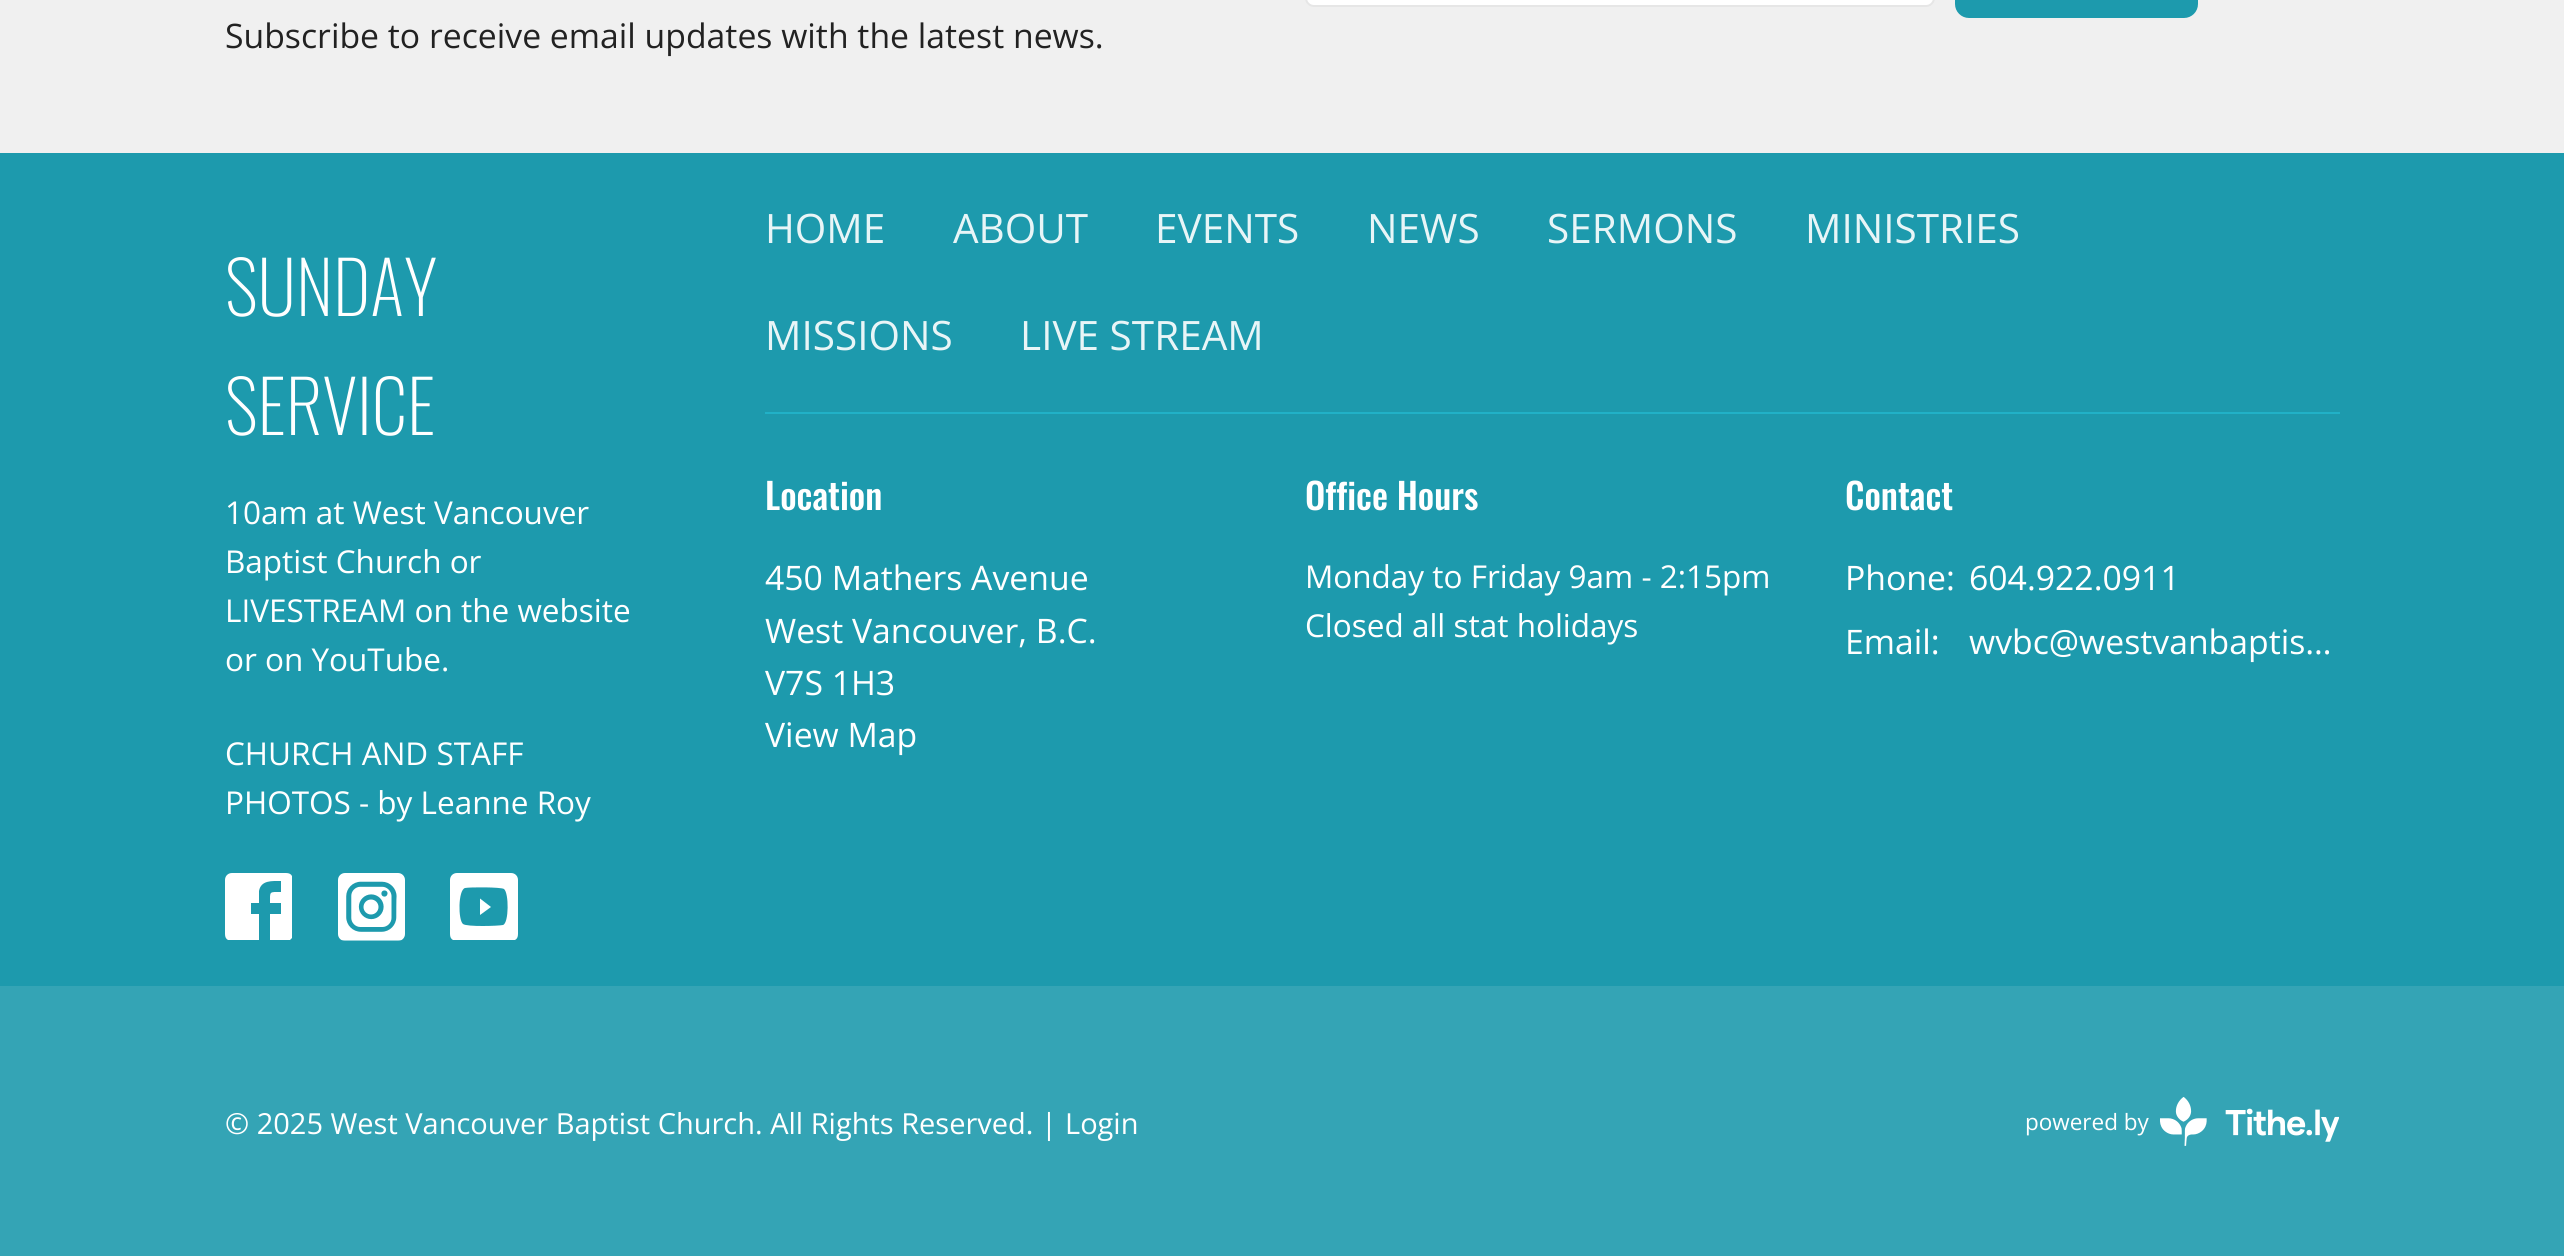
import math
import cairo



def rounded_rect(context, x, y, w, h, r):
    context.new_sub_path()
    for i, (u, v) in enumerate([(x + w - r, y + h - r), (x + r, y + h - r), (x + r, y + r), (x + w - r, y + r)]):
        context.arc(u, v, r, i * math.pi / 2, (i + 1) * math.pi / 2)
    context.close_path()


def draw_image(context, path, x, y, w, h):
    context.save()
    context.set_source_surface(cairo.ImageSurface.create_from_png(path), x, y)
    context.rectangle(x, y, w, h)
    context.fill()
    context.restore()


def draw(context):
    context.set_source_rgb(240 / 255, 240 / 255, 240 / 255)
    context.paint()
    context.set_source_rgb(1, 1, 1)
    rounded_rect(context, 1306, -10, 628, 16, 8)
    context.fill_preserve()
    context.set_source_rgb(230 / 255, 230 / 255, 230 / 255)
    context.stroke()
    context.set_source_rgb(29 / 255, 154 / 255, 173 / 255)
    rounded_rect(context, 1955, -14, 243, 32, 14)
    context.fill()
    context.rectangle(0, 153, 2564, 833)
    context.fill()
    context.set_source_rgb(33 / 255, 177 / 255, 199 / 255)
    context.rectangle(765, 412, 1575, 2)
    context.fill()
    context.set_source_rgb(1, 1, 1)
    context.new_path()
    context.move_to(281, 881)
    context.line_to(281, 892)
    context.curve_to(269, 892, 270, 891, 270, 903)
    context.line_to(281, 903)
    context.line_to(281, 914)
    context.line_to(270, 914)
    context.line_to(270, 940)
    context.line_to(290, 940)
    context.line_to(292, 938)
    context.line_to(292, 876)
    context.curve_to(291, 874, 289, 873, 286, 873)
    context.line_to(232, 873)
    context.curve_to(228, 873, 225, 876, 225, 880)
    context.line_to(225, 934)
    context.curve_to(225, 937, 226, 939, 228, 940)
    context.line_to(259, 940)
    context.line_to(259, 914)
    context.line_to(251, 914)
    context.line_to(251, 903)
    context.line_to(259, 903)
    context.line_to(259, 891)
    context.curve_to(261, 880, 272, 881, 281, 881)
    context.close_path()
    context.fill()
    draw_image(context, "images/1.png", 338, 873, 67, 68)
    context.new_path()
    context.move_to(480, 898.5)
    context.line_to(491, 907)
    context.line_to(480, 915)
    context.close_path()
    context.fill()
    context.set_fill_rule(cairo.FillRule.EVEN_ODD)
    context.new_path()
    context.move_to(457, 873)
    context.curve_to(453, 873, 450, 876, 450, 880)
    context.line_to(450, 934)
    context.curve_to(450, 937, 451, 939, 453, 940)
    context.line_to(515, 940)
    context.curve_to(517, 939, 518, 937, 518, 934)
    context.line_to(518, 880)
    context.curve_to(518, 876, 515, 873, 511, 873)
    context.close_path()
    context.move_to(503, 925)
    context.curve_to(509, 923, 509, 893, 504, 889)
    context.curve_to(501, 887, 470, 887, 465, 888)
    context.curve_to(458, 890, 458, 920, 463, 924)
    context.curve_to(467, 927, 498, 926, 503, 925)
    context.close_path()
    context.fill()
    context.set_source_rgb(52 / 255, 164 / 255, 181 / 255)
    context.rectangle(0, 986, 2564, 270)
    context.fill()
    draw_image(context, "images/2.png", 2160, 1097, 179, 49)
    context.select_font_face("Open Sans")
    context.set_font_size(33.75)
    context.set_source_rgb(34 / 255, 34 / 255, 34 / 255)
    context.move_to(225, 48)
    context.show_text("Subscribe to receive email updates with the latest news.")
    context.select_font_face("Oswald ExtraLight")
    context.set_font_size(72)
    context.set_source_rgb(1, 1, 1)
    context.move_to(225, 316)
    context.show_text("SUNDAY")
    context.move_to(225, 435)
    context.show_text("SERVICE")
    context.select_font_face("Open Sans")
    context.set_font_size(31.5)
    context.move_to(225, 524)
    context.show_text("10am at West Vancouver")
    context.move_to(225, 573)
    context.show_text("Baptist Church or")
    context.move_to(225, 622)
    context.show_text("LIVESTREAM on the website")
    context.move_to(225, 671)
    context.show_text("or on YouTube.")
    context.move_to(225, 765)
    context.show_text("CHURCH AND STAFF")
    context.move_to(225, 814)
    context.show_text("PHOTOS - by Leanne Roy")
    context.set_font_size(40.5)
    context.set_source_rgb(232 / 255, 245 / 255, 247 / 255)
    context.move_to(765, 243)
    context.show_text("HOME")
    context.move_to(953, 243)
    context.show_text("ABOUT")
    context.move_to(1155, 243)
    context.show_text("EVENTS")
    context.move_to(1367, 243)
    context.show_text("NEWS")
    context.move_to(1547, 243)
    context.show_text("SERMONS")
    context.move_to(1805, 243)
    context.show_text("MINISTRIES")
    context.move_to(765, 350)
    context.show_text("MISSIONS")
    context.move_to(1020, 350)
    context.show_text("LIVE STREAM")
    context.select_font_face("Oswald Medium")
    context.set_font_size(36)
    context.set_source_rgb(1, 1, 1)
    context.move_to(765, 510)
    context.show_text("Location")
    context.select_font_face("Open Sans")
    context.set_font_size(33.75)
    context.move_to(765, 590)
    context.show_text("450 Mathers Avenue")
    context.move_to(765, 643)
    context.show_text("West Vancouver, B.C.")
    context.move_to(765, 695)
    context.show_text("V7S 1H3")
    context.move_to(765, 747)
    context.show_text("View Map")
    context.select_font_face("Oswald Medium")
    context.set_font_size(36)
    context.move_to(1305, 510)
    context.show_text("Office Hours")
    context.select_font_face("Open Sans")
    context.set_font_size(31.5)
    context.move_to(1305, 588)
    context.show_text("Monday to Friday 9am - 2:15pm")
    context.move_to(1305, 637)
    context.show_text("Closed all stat holidays")
    context.select_font_face("Oswald Medium")
    context.set_font_size(36)
    context.move_to(1845, 510)
    context.show_text("Contact")
    context.select_font_face("Open Sans")
    context.set_font_size(33.75)
    context.move_to(1845, 590)
    context.show_text("Phone:")
    context.move_to(1969, 590)
    context.show_text("604.922.0911")
    context.move_to(1845, 654)
    context.show_text("Email:")
    context.move_to(1969, 654)
    context.show_text("wvbc@westvanbaptis…")
    context.set_font_size(29)
    context.move_to(225, 1134)
    context.show_text("© 2025 West Vancouver Baptist Church. All Rights Reserved. |")
    context.move_to(1065, 1134)
    context.show_text("Login")
    context.set_font_size(22.5)
    context.move_to(2025, 1130)
    context.show_text("powered by")


surface = cairo.ImageSurface(cairo.Format.RGB24, 2564, 1256)
context = cairo.Context(surface)
options = cairo.FontOptions()
options.set_hint_metrics(cairo.HintMetrics.OFF)
options.set_hint_style(cairo.HintStyle.NONE)
context.set_font_options(options)
context.set_miter_limit(4)
draw(context)
surface.write_to_png("out.png")
